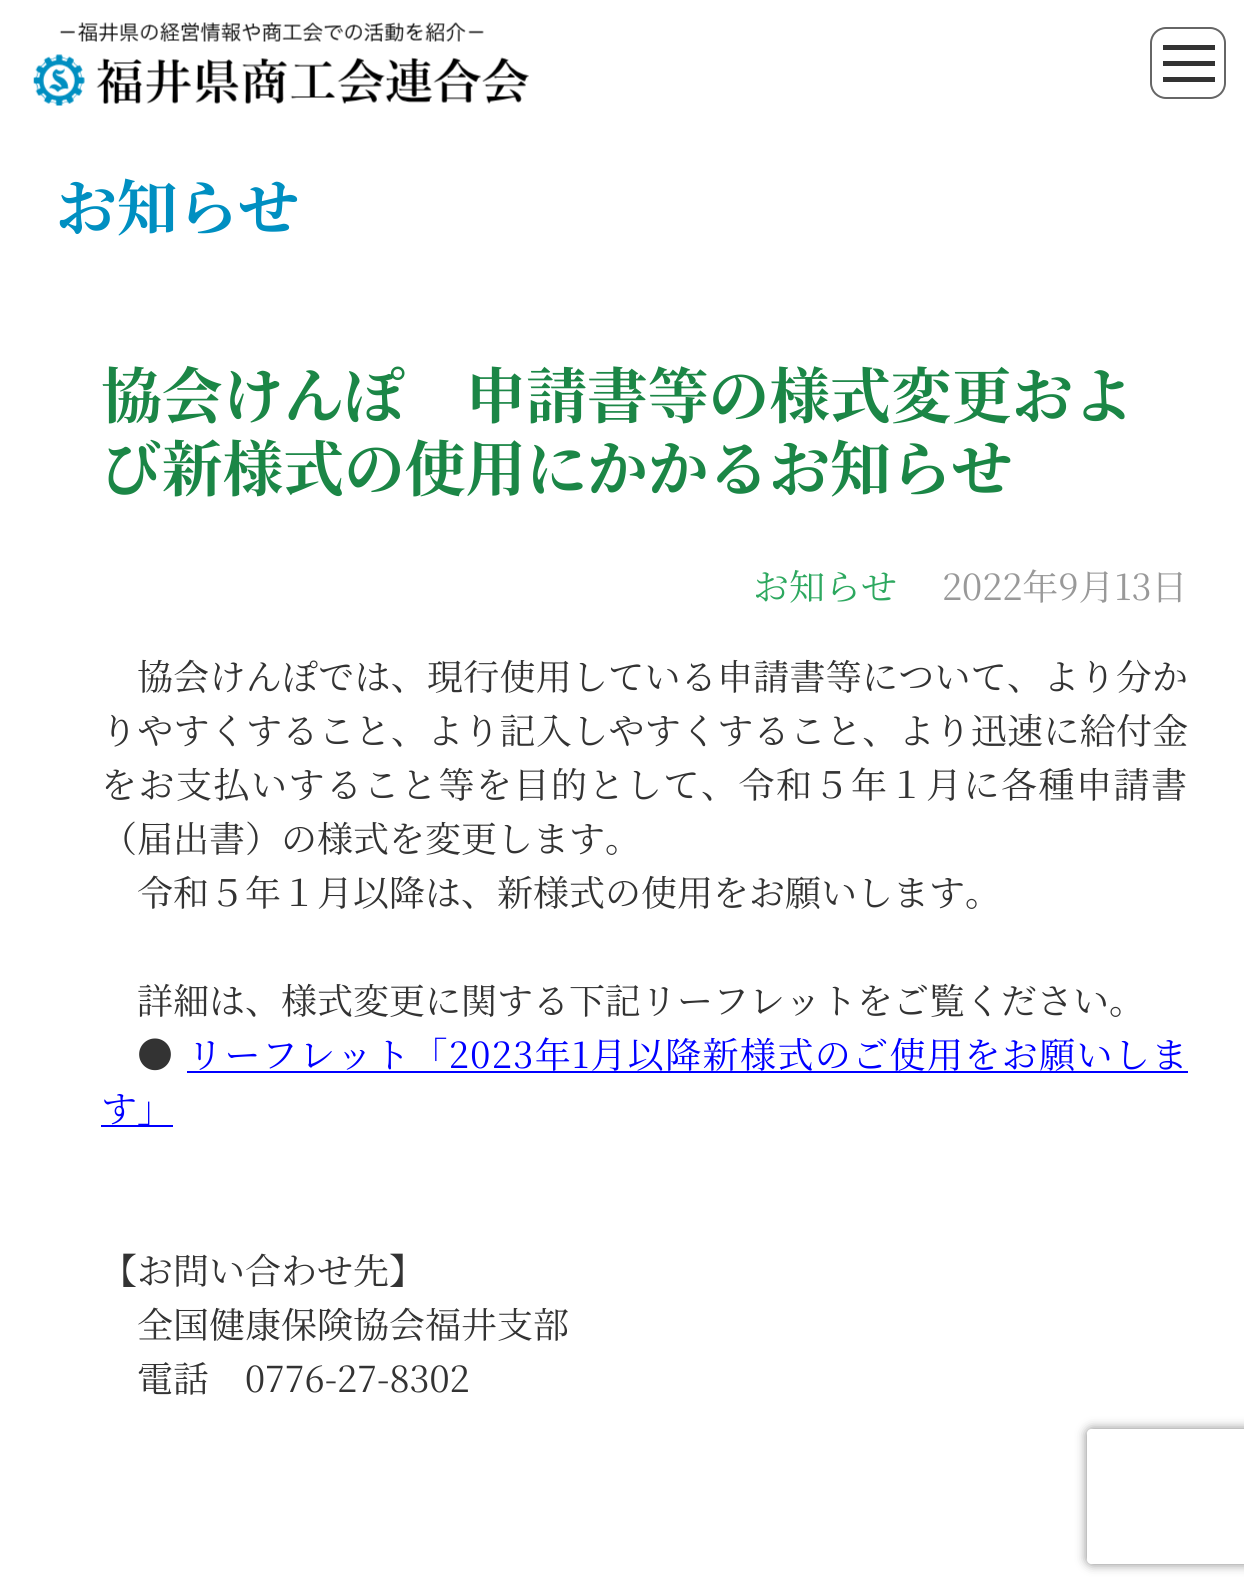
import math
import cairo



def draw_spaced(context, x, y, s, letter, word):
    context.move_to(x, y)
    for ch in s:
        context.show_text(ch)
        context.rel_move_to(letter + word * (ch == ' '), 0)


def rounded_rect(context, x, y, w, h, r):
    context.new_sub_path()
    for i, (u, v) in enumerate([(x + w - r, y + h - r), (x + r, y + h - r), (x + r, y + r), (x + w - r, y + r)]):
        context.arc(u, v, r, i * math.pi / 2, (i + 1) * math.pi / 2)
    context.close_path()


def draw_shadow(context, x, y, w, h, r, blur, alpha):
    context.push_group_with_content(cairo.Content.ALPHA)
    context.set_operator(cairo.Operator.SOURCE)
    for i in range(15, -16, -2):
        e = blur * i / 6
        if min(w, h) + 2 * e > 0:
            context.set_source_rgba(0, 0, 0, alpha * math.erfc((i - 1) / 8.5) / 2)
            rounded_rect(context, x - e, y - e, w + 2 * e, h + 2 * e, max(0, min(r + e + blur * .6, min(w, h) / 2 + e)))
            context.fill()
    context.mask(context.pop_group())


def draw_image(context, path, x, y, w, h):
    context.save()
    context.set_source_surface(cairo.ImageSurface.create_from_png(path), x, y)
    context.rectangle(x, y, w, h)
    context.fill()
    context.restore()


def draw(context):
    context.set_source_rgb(1, 1, 1)
    context.paint()
    draw_image(context, "images/1.png", 33, 22, 496, 84)
    rounded_rect(context, 1151, 28, 74, 70, 15)
    context.set_source_rgb(102 / 255, 102 / 255, 102 / 255)
    context.stroke()
    context.set_source_rgb(51 / 255, 51 / 255, 51 / 255)
    context.rectangle(1163, 45, 52, 5)
    context.fill()
    context.rectangle(1163, 61, 52, 5)
    context.fill()
    context.rectangle(1163, 77, 52, 5)
    context.fill()
    context.set_source_rgb(0, 0, 1)
    context.rectangle(187, 1071, 1001, 2)
    context.fill()
    context.rectangle(101, 1125, 72, 2)
    context.fill()
    context.save()
    context.set_fill_rule(cairo.FillRule.EVEN_ODD)
    context.new_path()
    context.move_to(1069, 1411)
    context.line_to(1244, 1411)
    context.line_to(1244, 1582)
    context.line_to(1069, 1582)
    context.close_path()
    context.move_to(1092, 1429)
    context.line_to(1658, 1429)
    context.curve_to(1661, 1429, 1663, 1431, 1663, 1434)
    context.line_to(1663, 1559)
    context.curve_to(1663, 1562, 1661, 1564, 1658, 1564)
    context.line_to(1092, 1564)
    context.curve_to(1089, 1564, 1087, 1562, 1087, 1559)
    context.line_to(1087, 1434)
    context.curve_to(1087, 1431, 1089, 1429, 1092, 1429)
    context.close_path()
    context.clip()
    context.set_source_rgb(128 / 255, 128 / 255, 128 / 255)
    draw_shadow(context, 1087, 1429, 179, 135, 5, 5.5, 1)
    context.restore()
    context.select_font_face("Noto Serif JP", cairo.FontSlant.NORMAL, cairo.FontWeight.BOLD)
    context.set_font_size(60.75)
    context.set_source_rgb(0, 143 / 255, 193 / 255)
    context.move_to(56, 230)
    context.show_text("お知らせ")
    context.set_source_rgb(27 / 255, 134 / 255, 70 / 255)
    context.move_to(101, 418)
    context.show_text("協会けんぽ　申請書等の様式変更およ")
    context.move_to(101, 491)
    context.show_text("び新様式の使用にかかるお知らせ")
    context.select_font_face("Noto Serif JP")
    context.set_font_size(36)
    context.set_source_rgb(45 / 255, 168 / 255, 95 / 255)
    context.move_to(753, 600)
    context.show_text("お知らせ")
    context.set_source_rgb(153 / 255, 153 / 255, 153 / 255)
    context.move_to(942, 600)
    context.show_text("2022年9月13日")
    context.set_source_rgb(51 / 255, 51 / 255, 51 / 255)
    draw_spaced(context, 137, 690, "協会けんぽでは、現行使用している申請書等について、より分か", 0.25, 0)
    draw_spaced(context, 101, 744, "りやすくすること、より記入しやすくすること、より迅速に給付金", 0.25, 0)
    draw_spaced(context, 101, 798, "をお支払いすること等を目的として、令和５年１月に各種申請書", 1.5, 0)
    context.move_to(101, 852)
    context.show_text("（届出書）の様式を変更します。")
    context.move_to(137, 906)
    context.show_text("令和５年１月以降は、新様式の使用をお願いします。")
    context.move_to(137, 1014)
    context.show_text("詳細は、様式変更に関する下記リーフレットをご覧ください。")
    context.move_to(137, 1068)
    context.show_text("●")
    context.set_source_rgb(0, 0, 1)
    draw_spaced(context, 187, 1068, "リーフレット「2023年1月以降新様式のご使用をお願いしま", 1.4, 0)
    context.move_to(101, 1122)
    context.show_text("す」")
    context.set_source_rgb(51 / 255, 51 / 255, 51 / 255)
    context.move_to(101, 1284)
    context.show_text("【お問い合わせ先】")
    context.move_to(137, 1338)
    context.show_text("全国健康保険協会福井支部")
    context.move_to(137, 1392)
    context.show_text("電話　0776-27-8302")


surface = cairo.ImageSurface(cairo.Format.RGB24, 1244, 1595)
context = cairo.Context(surface)
options = cairo.FontOptions()
options.set_hint_metrics(cairo.HintMetrics.OFF)
options.set_hint_style(cairo.HintStyle.NONE)
context.set_font_options(options)
context.set_miter_limit(4)
draw(context)
surface.write_to_png("out.png")
